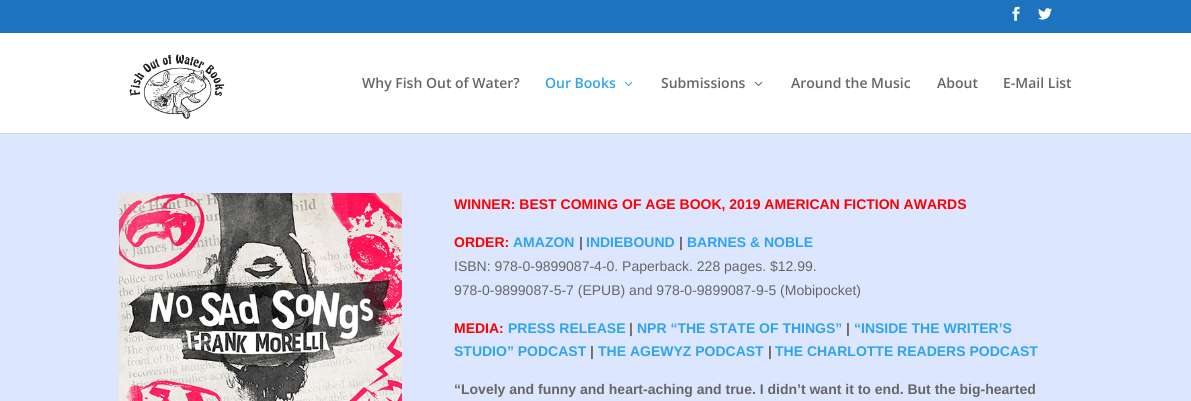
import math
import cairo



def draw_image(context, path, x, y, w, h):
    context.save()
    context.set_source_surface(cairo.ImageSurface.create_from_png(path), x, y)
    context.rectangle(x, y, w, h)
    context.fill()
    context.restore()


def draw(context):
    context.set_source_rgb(221 / 255, 230 / 255, 1)
    context.paint()
    context.set_source_rgb(30 / 255, 115 / 255, 190 / 255)
    context.rectangle(0, 0, 1191, 33)
    context.fill()
    draw_image(context, "images/1.png", 1012, 6, 8, 15)
    draw_image(context, "images/2.png", 1038, 8, 14, 12)
    context.set_source_rgb(199 / 255, 207 / 255, 230 / 255)
    context.rectangle(0, 133, 1191, 1)
    context.fill()
    context.set_source_rgb(1, 1, 1)
    context.rectangle(0, 33, 1191, 100)
    context.fill()
    draw_image(context, "images/3.png", 129, 54, 96, 65)
    draw_image(context, "images/4.png", 624, 81, 9, 5)
    draw_image(context, "images/5.png", 754, 81, 9, 5)
    draw_image(context, "images/6.png", 119, 193, 283, 208)
    context.select_font_face("Open Sans SemiBold")
    context.set_font_size(14)
    context.set_source_rgb(102 / 255, 102 / 255, 102 / 255)
    context.move_to(362, 88)
    context.show_text("Why Fish Out of Water?")
    context.set_source_rgb(46 / 255, 163 / 255, 242 / 255)
    context.move_to(545, 88)
    context.show_text("Our Books")
    context.set_source_rgb(102 / 255, 102 / 255, 102 / 255)
    context.move_to(661, 88)
    context.show_text("Submissions")
    context.move_to(791, 88)
    context.show_text("Around the Music")
    context.move_to(937, 88)
    context.show_text("About")
    context.move_to(1003, 88)
    context.show_text("E-Mail List")
    context.select_font_face("Liberation Sans", cairo.FontSlant.NORMAL, cairo.FontWeight.BOLD)
    context.set_source_rgb(1, 0, 0)
    context.move_to(454, 209)
    context.show_text("WINNER: BEST COMING OF AGE BOOK, 2019 AMERICAN FICTION AWARDS")
    context.move_to(454, 247)
    context.show_text("ORDER:")
    context.set_source_rgb(46 / 255, 163 / 255, 242 / 255)
    context.move_to(513, 247)
    context.show_text("AMAZON")
    context.set_source_rgb(102 / 255, 102 / 255, 102 / 255)
    context.move_to(579, 247)
    context.show_text("|")
    context.set_source_rgb(46 / 255, 163 / 255, 242 / 255)
    context.move_to(586, 247)
    context.show_text("INDIEBOUND")
    context.set_source_rgb(102 / 255, 102 / 255, 102 / 255)
    context.move_to(679, 247)
    context.show_text("|")
    context.set_source_rgb(46 / 255, 163 / 255, 242 / 255)
    context.move_to(687, 247)
    context.show_text("BARNES & NOBLE")
    context.select_font_face("Liberation Sans")
    context.set_source_rgb(102 / 255, 102 / 255, 102 / 255)
    context.move_to(454, 271)
    context.show_text("ISBN: 978-0-9899087-4-0. Paperback. 228 pages. $12.99.")
    context.move_to(454, 295)
    context.show_text("978-0-9899087-5-7 (EPUB) and 978-0-9899087-9-5 (Mobipocket)")
    context.select_font_face("Liberation Sans", cairo.FontSlant.NORMAL, cairo.FontWeight.BOLD)
    context.set_source_rgb(1, 0, 0)
    context.move_to(454, 333)
    context.show_text("MEDIA:")
    context.set_source_rgb(46 / 255, 163 / 255, 242 / 255)
    context.move_to(508, 333)
    context.show_text("PRESS RELEASE")
    context.set_source_rgb(102 / 255, 102 / 255, 102 / 255)
    context.move_to(629, 333)
    context.show_text("|")
    context.set_source_rgb(46 / 255, 163 / 255, 242 / 255)
    context.move_to(637, 333)
    context.show_text("NPR “THE STATE OF THINGS”")
    context.set_source_rgb(102 / 255, 102 / 255, 102 / 255)
    context.move_to(846, 333)
    context.show_text("|")
    context.set_source_rgb(46 / 255, 163 / 255, 242 / 255)
    context.move_to(854, 333)
    context.show_text("“INSIDE THE WRITER’S")
    context.move_to(454, 356)
    context.show_text("STUDIO” PODCAST")
    context.set_source_rgb(102 / 255, 102 / 255, 102 / 255)
    context.move_to(590, 356)
    context.show_text("|")
    context.set_source_rgb(46 / 255, 163 / 255, 242 / 255)
    context.move_to(598, 356)
    context.show_text("THE AGEWYZ PODCAST")
    context.set_source_rgb(102 / 255, 102 / 255, 102 / 255)
    context.move_to(768, 356)
    context.show_text("|")
    context.set_source_rgb(46 / 255, 163 / 255, 242 / 255)
    context.move_to(775, 356)
    context.show_text("THE CHARLOTTE READERS PODCAST")
    context.set_source_rgb(102 / 255, 102 / 255, 102 / 255)
    context.move_to(454, 394)
    context.show_text("“Lovely and funny and heart-aching and true. I didn’t want it to end. But the big-hearted")


surface = cairo.ImageSurface(cairo.Format.RGB24, 1191, 401)
context = cairo.Context(surface)
options = cairo.FontOptions()
options.set_hint_metrics(cairo.HintMetrics.OFF)
options.set_hint_style(cairo.HintStyle.NONE)
context.set_font_options(options)
context.set_miter_limit(4)
draw(context)
surface.write_to_png("out.png")
